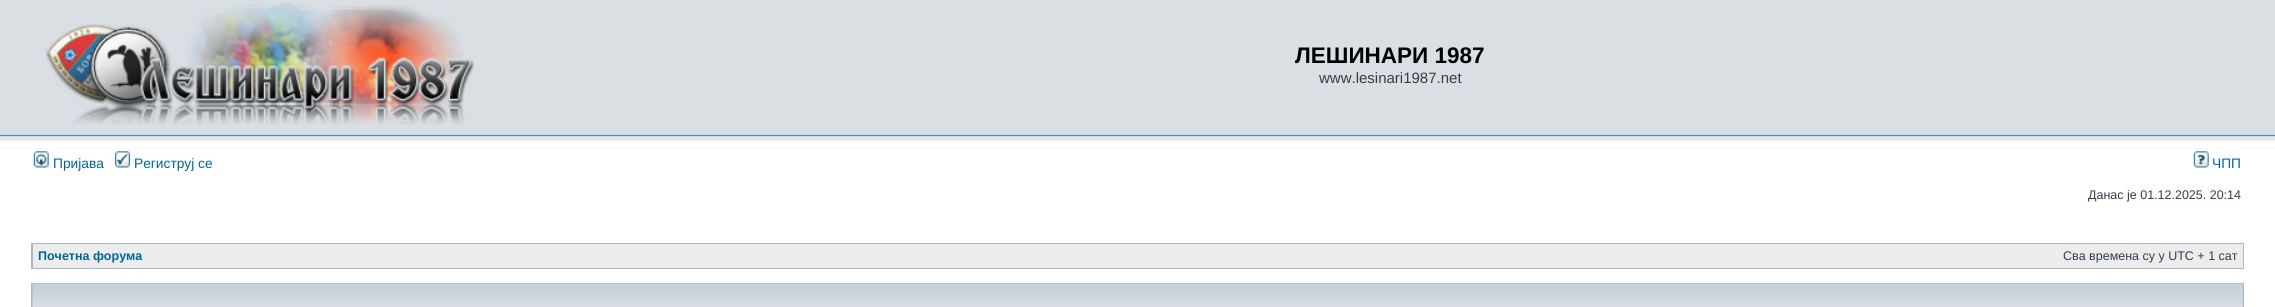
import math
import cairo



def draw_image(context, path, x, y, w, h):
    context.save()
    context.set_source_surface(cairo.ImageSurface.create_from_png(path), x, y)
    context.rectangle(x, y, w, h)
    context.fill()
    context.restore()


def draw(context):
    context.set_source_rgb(1, 1, 1)
    context.paint()
    context.set_source_rgb(218 / 255, 223 / 255, 227 / 255)
    context.rectangle(0, 0, 2275, 149)
    context.fill()
    draw_image(context, "images/1.png", 0, 134, 2275, 15)
    draw_image(context, "images/2.png", 44, 2, 430, 123)
    draw_image(context, "images/3.png", 33, 151, 16, 17)
    draw_image(context, "images/4.png", 115, 151, 15, 17)
    draw_image(context, "images/5.png", 2193, 151, 16, 17)
    context.set_source_rgb(169 / 255, 184 / 255, 194 / 255)
    context.rectangle(31, 243, 2213, 26)
    context.fill()
    context.set_source_rgb(236 / 255, 236 / 255, 236 / 255)
    context.rectangle(33, 244, 2210, 24)
    context.fill()
    context.set_source_rgb(169 / 255, 184 / 255, 194 / 255)
    context.rectangle(31, 283, 2213, 24)
    context.fill()
    context.set_source_rgb(199 / 255, 208 / 255, 215 / 255)
    context.rectangle(2242, 284, 1, 23)
    context.fill()
    draw_image(context, "images/6.png", 32, 283, 2211, 24)
    context.select_font_face("Liberation Sans", cairo.FontSlant.NORMAL, cairo.FontWeight.BOLD)
    context.set_font_size(22.5)
    context.set_source_rgb(0, 0, 0)
    context.move_to(1295, 63)
    context.show_text("ЛЕШИНАРИ 1987")
    context.select_font_face("Liberation Sans")
    context.set_font_size(15)
    context.set_source_rgb(50 / 255, 61 / 255, 79 / 255)
    context.move_to(1319, 83)
    context.show_text("www.lesinari1987.net")
    context.set_font_size(13.75)
    context.set_source_rgb(0, 101 / 255, 151 / 255)
    context.move_to(53, 168)
    context.show_text("Пријава")
    context.move_to(134, 168)
    context.show_text("Региструј се")
    context.move_to(2212, 168)
    context.show_text("ЧПП")
    context.set_font_size(12.5)
    context.set_source_rgb(50 / 255, 61 / 255, 79 / 255)
    context.move_to(2088, 199)
    context.show_text("Данас је 01.12.2025. 20:14")
    context.select_font_face("Liberation Sans", cairo.FontSlant.NORMAL, cairo.FontWeight.BOLD)
    context.set_source_rgb(0, 101 / 255, 151 / 255)
    context.move_to(38, 260)
    context.show_text("Почетна форума")
    context.select_font_face("Liberation Sans")
    context.set_source_rgb(50 / 255, 61 / 255, 79 / 255)
    context.move_to(2063, 260)
    context.show_text("Сва времена су у UTC + 1 сат")


surface = cairo.ImageSurface(cairo.Format.RGB24, 2275, 307)
context = cairo.Context(surface)
options = cairo.FontOptions()
options.set_hint_metrics(cairo.HintMetrics.OFF)
options.set_hint_style(cairo.HintStyle.NONE)
context.set_font_options(options)
context.set_miter_limit(4)
draw(context)
surface.write_to_png("out.png")
